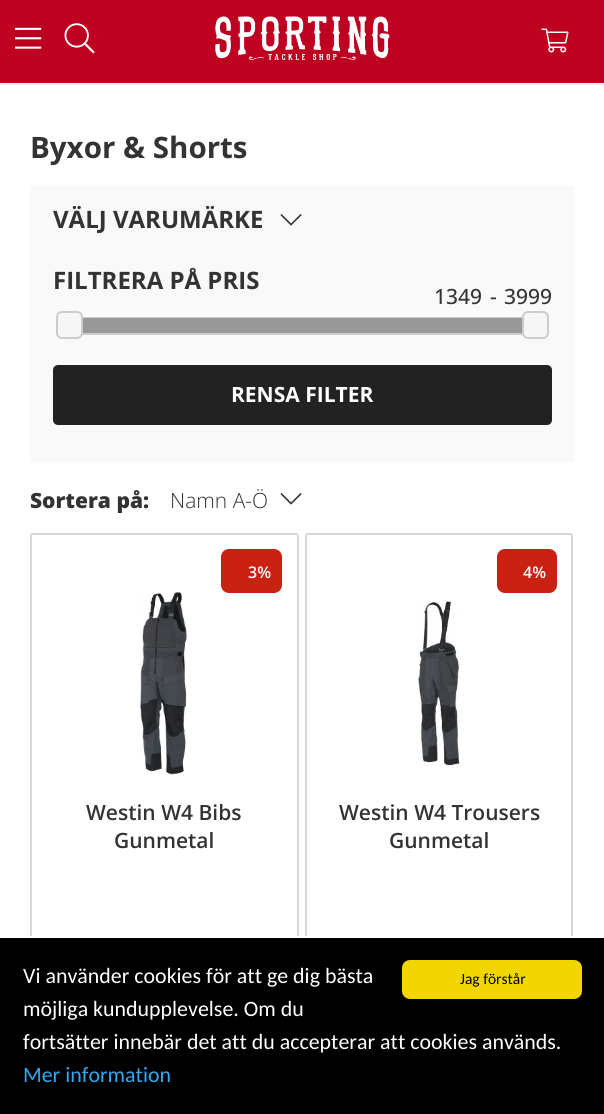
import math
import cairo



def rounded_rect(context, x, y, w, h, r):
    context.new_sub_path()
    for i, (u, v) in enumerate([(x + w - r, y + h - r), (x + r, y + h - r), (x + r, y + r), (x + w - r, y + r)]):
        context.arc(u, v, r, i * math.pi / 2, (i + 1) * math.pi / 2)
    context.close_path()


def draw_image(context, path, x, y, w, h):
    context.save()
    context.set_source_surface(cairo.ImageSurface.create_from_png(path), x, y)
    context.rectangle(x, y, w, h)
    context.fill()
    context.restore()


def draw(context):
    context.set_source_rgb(1, 1, 1)
    context.paint()
    context.set_source_rgb(190 / 255, 1 / 255, 33 / 255)
    context.rectangle(0, 0, 604, 83)
    context.fill()
    context.set_source_rgb(238 / 255, 238 / 255, 238 / 255)
    context.rectangle(0, 83, 604, 2)
    context.fill()
    draw_image(context, "images/1.png", 15, 27, 27, 22)
    draw_image(context, "images/2.png", 64, 23, 31, 31)
    draw_image(context, "images/3.png", 215, 16, 175, 44)
    draw_image(context, "images/4.png", 541, 28, 28, 25)
    context.set_source_rgb(249 / 255, 249 / 255, 249 / 255)
    context.rectangle(30, 186, 545, 276)
    context.fill()
    draw_image(context, "images/5.png", 280, 214, 22, 12)
    context.rectangle(69, 318, 467, 16)
    context.set_source_rgb(204 / 255, 204 / 255, 204 / 255)
    context.stroke()
    context.set_source_rgb(246 / 255, 246 / 255, 246 / 255)
    rounded_rect(context, 57, 312, 25, 26, 5)
    context.fill_preserve()
    context.set_source_rgb(204 / 255, 204 / 255, 204 / 255)
    context.stroke()
    context.set_source_rgb(153 / 255, 153 / 255, 153 / 255)
    context.rectangle(83, 318, 439, 15)
    context.fill()
    context.set_source_rgb(246 / 255, 246 / 255, 246 / 255)
    rounded_rect(context, 523, 312, 25, 26, 5)
    context.fill_preserve()
    context.set_source_rgb(204 / 255, 204 / 255, 204 / 255)
    context.stroke()
    context.set_source_rgb(34 / 255, 34 / 255, 34 / 255)
    rounded_rect(context, 53, 365, 499, 60, 5)
    context.fill()
    draw_image(context, "images/6.png", 280, 493, 22, 12)
    rounded_rect(context, 31, 534, 267, 502, 2)
    context.set_source_rgb(215 / 255, 215 / 255, 215 / 255)
    context.stroke()
    context.set_source_rgb(201 / 255, 34 / 255, 19 / 255)
    rounded_rect(context, 221, 549, 61, 44, 8)
    context.fill()
    draw_image(context, "images/7.png", 140, 592, 47, 183)
    rounded_rect(context, 306, 534, 266, 502, 2)
    context.set_source_rgb(215 / 255, 215 / 255, 215 / 255)
    context.stroke()
    context.set_source_rgb(201 / 255, 34 / 255, 19 / 255)
    rounded_rect(context, 497, 549, 60, 44, 8)
    context.fill()
    draw_image(context, "images/8.png", 418, 601, 42, 165)
    context.set_source_rgb(0, 0, 0)
    context.rectangle(0, 938, 604, 176)
    context.fill()
    context.set_source_rgb(1, 1, 1)
    context.rectangle(30, 936, 543, 2)
    context.fill()
    context.set_source_rgb(241 / 255, 214 / 255, 0)
    rounded_rect(context, 402, 960, 180, 39, 8)
    context.fill()
    context.select_font_face("Open Sans", cairo.FontSlant.NORMAL, cairo.FontWeight.BOLD)
    context.set_font_size(29.5)
    context.set_source_rgb(51 / 255, 51 / 255, 51 / 255)
    context.move_to(30, 158)
    context.show_text("Byxor & Shorts")
    context.set_font_size(24)
    context.move_to(53, 228)
    context.show_text("VÄLJ VARUMÄRKE")
    context.move_to(53, 289)
    context.show_text("FILTRERA PÅ PRIS")
    context.select_font_face("Open Sans Medium")
    context.set_font_size(21)
    context.move_to(434, 304)
    context.show_text("1349")
    context.move_to(490, 304)
    context.show_text("-")
    context.move_to(504, 304)
    context.show_text("3999")
    context.select_font_face("Open Sans", cairo.FontSlant.NORMAL, cairo.FontWeight.BOLD)
    context.set_source_rgb(1, 1, 1)
    context.move_to(231, 402)
    context.show_text("RENSA FILTER")
    context.select_font_face("Open Sans ExtraBold")
    context.set_source_rgb(51 / 255, 51 / 255, 51 / 255)
    context.move_to(30, 508)
    context.show_text("Sortera på:")
    context.select_font_face("Open Sans Light")
    context.move_to(170, 508)
    context.show_text("Namn A-Ö")
    context.select_font_face("Open Sans SemiBold")
    context.set_font_size(16)
    context.set_source_rgb(1, 1, 1)
    context.move_to(248, 578)
    context.show_text("3%")
    context.set_font_size(21)
    context.set_source_rgb(51 / 255, 51 / 255, 51 / 255)
    context.move_to(86, 820)
    context.show_text("Westin W4 Bibs")
    context.move_to(114, 848)
    context.show_text("Gunmetal")
    context.set_font_size(16)
    context.set_source_rgb(1, 1, 1)
    context.move_to(523, 578)
    context.show_text("4%")
    context.set_font_size(21)
    context.set_source_rgb(51 / 255, 51 / 255, 51 / 255)
    context.move_to(339, 820)
    context.show_text("Westin W4 Trousers")
    context.move_to(389, 848)
    context.show_text("Gunmetal")
    context.select_font_face("Carlito")
    context.set_font_size(21.9)
    context.set_source_rgb(1, 1, 1)
    context.move_to(23, 983)
    context.show_text("Vi använder cookies för att ge dig bästa")
    context.move_to(23, 1016)
    context.show_text("möjliga kundupplevelse. Om du")
    context.move_to(23, 1049)
    context.show_text("fortsätter innebär det att du accepterar att cookies används.")
    context.set_source_rgb(49 / 255, 168 / 255, 240 / 255)
    context.move_to(23, 1082)
    context.show_text("Mer information")
    context.set_font_size(15.5)
    context.set_source_rgb(0, 0, 0)
    context.move_to(460, 984)
    context.show_text("Jag förstår")


surface = cairo.ImageSurface(cairo.Format.RGB24, 604, 1114)
context = cairo.Context(surface)
options = cairo.FontOptions()
options.set_hint_metrics(cairo.HintMetrics.OFF)
options.set_hint_style(cairo.HintStyle.NONE)
context.set_font_options(options)
context.set_miter_limit(4)
draw(context)
surface.write_to_png("out.png")
